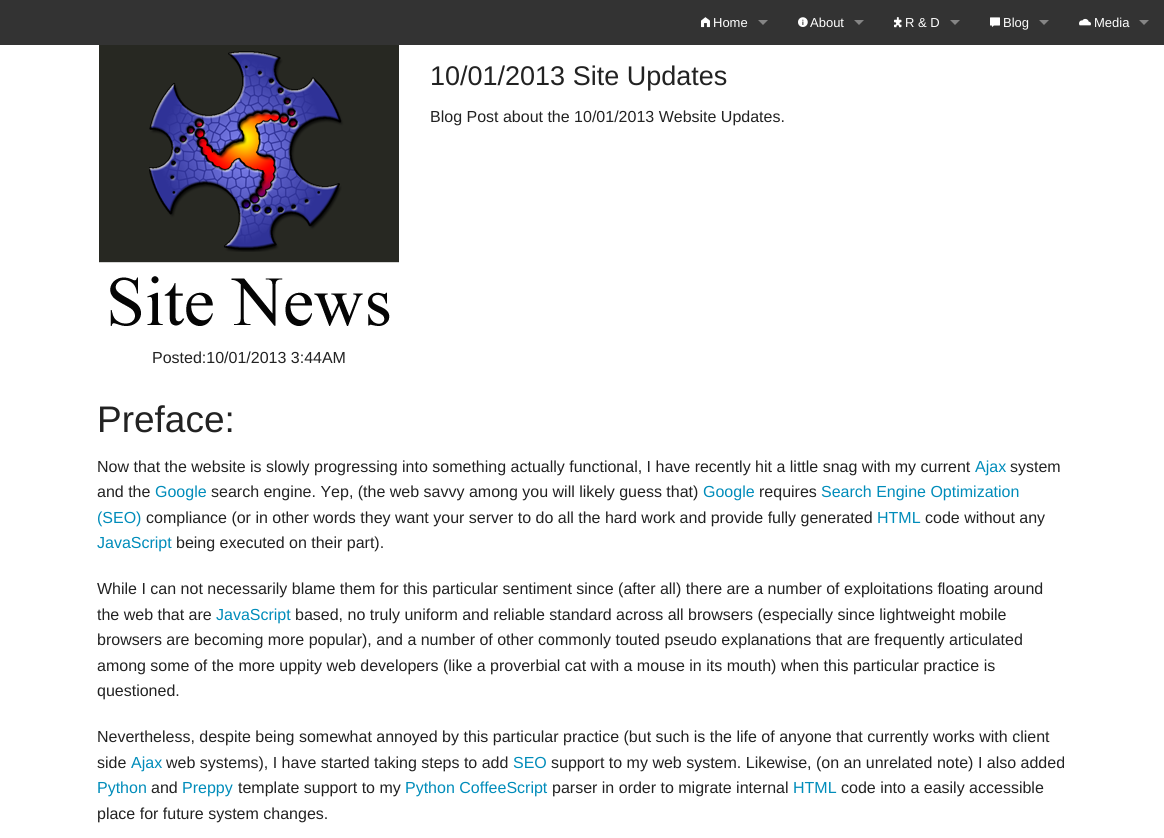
import math
import cairo



def draw_image(context, path, x, y, w, h):
    context.save()
    context.set_source_surface(cairo.ImageSurface.create_from_png(path), x, y)
    context.rectangle(x, y, w, h)
    context.fill()
    context.restore()


def draw(context):
    context.set_source_rgb(1, 1, 1)
    context.paint()
    context.set_source_rgb(51 / 255, 51 / 255, 51 / 255)
    context.rectangle(0, 0, 1164, 45)
    context.fill()
    draw_image(context, "images/1.png", 701, 17, 9, 11)
    context.set_source_rgb(133 / 255, 133 / 255, 133 / 255)
    context.new_path()
    context.move_to(758, 20)
    context.line_to(768, 20)
    context.line_to(763, 25)
    context.close_path()
    context.fill()
    draw_image(context, "images/2.png", 798, 17, 10, 10)
    context.new_path()
    context.move_to(854, 20)
    context.line_to(864, 20)
    context.line_to(859, 25)
    context.close_path()
    context.fill()
    draw_image(context, "images/3.png", 894, 17, 8, 11)
    context.new_path()
    context.move_to(950, 20)
    context.line_to(960, 20)
    context.line_to(955, 25)
    context.close_path()
    context.fill()
    draw_image(context, "images/4.png", 990, 17, 10, 10)
    context.new_path()
    context.move_to(1039, 20)
    context.line_to(1049, 20)
    context.line_to(1044, 25)
    context.close_path()
    context.fill()
    draw_image(context, "images/5.png", 1079, 18, 12, 8)
    context.new_path()
    context.move_to(1139, 20)
    context.line_to(1149, 20)
    context.line_to(1144, 25)
    context.close_path()
    context.fill()
    draw_image(context, "images/6.png", 99, 45, 300, 281)
    context.select_font_face("Liberation Sans")
    context.set_font_size(13)
    context.set_source_rgb(1, 1, 1)
    context.move_to(713, 27)
    context.show_text("Home")
    context.move_to(810, 27)
    context.show_text("About")
    context.move_to(905, 27)
    context.show_text("R & D")
    context.move_to(1003, 27)
    context.show_text("Blog")
    context.move_to(1094, 27)
    context.show_text("Media")
    context.set_font_size(27)
    context.set_source_rgb(34 / 255, 34 / 255, 34 / 255)
    context.move_to(430, 85)
    context.show_text("10/01/2013 Site Updates")
    context.set_font_size(16)
    context.move_to(430, 122)
    context.show_text("Blog Post about the 10/01/2013 Website Updates.")
    context.move_to(152, 363)
    context.show_text("Posted:10/01/2013 3:44AM")
    context.set_font_size(37)
    context.move_to(97, 432)
    context.show_text("Preface:")
    context.set_font_size(16)
    context.move_to(97, 472)
    context.show_text("Now that the website is slowly progressing into something actually functional, I have recently hit a little snag with my current")
    context.set_source_rgb(0, 140 / 255, 186 / 255)
    context.move_to(975, 472)
    context.show_text("Ajax")
    context.set_source_rgb(34 / 255, 34 / 255, 34 / 255)
    context.move_to(1010, 472)
    context.show_text("system")
    context.move_to(97, 497)
    context.show_text("and the")
    context.set_source_rgb(0, 140 / 255, 186 / 255)
    context.move_to(155, 497)
    context.show_text("Google")
    context.set_source_rgb(34 / 255, 34 / 255, 34 / 255)
    context.move_to(211, 497)
    context.show_text("search engine. Yep, (the web savvy among you will likely guess that)")
    context.set_source_rgb(0, 140 / 255, 186 / 255)
    context.move_to(703, 497)
    context.show_text("Google")
    context.set_source_rgb(34 / 255, 34 / 255, 34 / 255)
    context.move_to(759, 497)
    context.show_text("requires")
    context.set_source_rgb(0, 140 / 255, 186 / 255)
    context.move_to(821, 497)
    context.show_text("Search Engine Optimization")
    context.move_to(97, 523)
    context.show_text("(SEO)")
    context.set_source_rgb(34 / 255, 34 / 255, 34 / 255)
    context.move_to(146, 523)
    context.show_text("compliance (or in other words they want your server to do all the hard work and provide fully generated")
    context.set_source_rgb(0, 140 / 255, 186 / 255)
    context.move_to(877, 523)
    context.show_text("HTML")
    context.set_source_rgb(34 / 255, 34 / 255, 34 / 255)
    context.move_to(925, 523)
    context.show_text("code without any")
    context.set_source_rgb(0, 140 / 255, 186 / 255)
    context.move_to(97, 548)
    context.show_text("JavaScript")
    context.set_source_rgb(34 / 255, 34 / 255, 34 / 255)
    context.move_to(176, 548)
    context.show_text("being executed on their part).")
    context.move_to(97, 594)
    context.show_text("While I can not necessarily blame them for this particular sentiment since (after all) there are a number of exploitations floating around")
    context.move_to(97, 620)
    context.show_text("the web that are")
    context.set_source_rgb(0, 140 / 255, 186 / 255)
    context.move_to(216, 620)
    context.show_text("JavaScript")
    context.set_source_rgb(34 / 255, 34 / 255, 34 / 255)
    context.move_to(295, 620)
    context.show_text("based, no truly uniform and reliable standard across all browsers (especially since lightweight mobile")
    context.move_to(97, 645)
    context.show_text("browsers are becoming more popular), and a number of other commonly touted pseudo explanations that are frequently articulated")
    context.move_to(97, 671)
    context.show_text("among some of the more uppity web developers (like a proverbial cat with a mouse in its mouth) when this particular practice is")
    context.move_to(97, 696)
    context.show_text("questioned.")
    context.move_to(97, 742)
    context.show_text("Nevertheless, despite being somewhat annoyed by this particular practice (but such is the life of anyone that currently works with client")
    context.move_to(97, 768)
    context.show_text("side")
    context.set_source_rgb(0, 140 / 255, 186 / 255)
    context.move_to(131, 768)
    context.show_text("Ajax")
    context.set_source_rgb(34 / 255, 34 / 255, 34 / 255)
    context.move_to(166, 768)
    context.show_text("web systems), I have started taking steps to add")
    context.set_source_rgb(0, 140 / 255, 186 / 255)
    context.move_to(513, 768)
    context.show_text("SEO")
    context.set_source_rgb(34 / 255, 34 / 255, 34 / 255)
    context.move_to(551, 768)
    context.show_text("support to my web system. Likewise, (on an unrelated note) I also added")
    context.set_source_rgb(0, 140 / 255, 186 / 255)
    context.move_to(97, 793)
    context.show_text("Python")
    context.set_source_rgb(34 / 255, 34 / 255, 34 / 255)
    context.move_to(151, 793)
    context.show_text("and")
    context.set_source_rgb(0, 140 / 255, 186 / 255)
    context.move_to(182, 793)
    context.show_text("Preppy")
    context.set_source_rgb(34 / 255, 34 / 255, 34 / 255)
    context.move_to(238, 793)
    context.show_text("template support to my")
    context.set_source_rgb(0, 140 / 255, 186 / 255)
    context.move_to(405, 793)
    context.show_text("Python CoffeeScript")
    context.set_source_rgb(34 / 255, 34 / 255, 34 / 255)
    context.move_to(552, 793)
    context.show_text("parser in order to migrate internal")
    context.set_source_rgb(0, 140 / 255, 186 / 255)
    context.move_to(793, 793)
    context.show_text("HTML")
    context.set_source_rgb(34 / 255, 34 / 255, 34 / 255)
    context.move_to(841, 793)
    context.show_text("code into a easily accessible")
    context.move_to(97, 819)
    context.show_text("place for future system changes.")


surface = cairo.ImageSurface(cairo.Format.RGB24, 1164, 838)
context = cairo.Context(surface)
options = cairo.FontOptions()
options.set_hint_metrics(cairo.HintMetrics.OFF)
options.set_hint_style(cairo.HintStyle.NONE)
context.set_font_options(options)
context.set_miter_limit(4)
draw(context)
surface.write_to_png("out.png")
